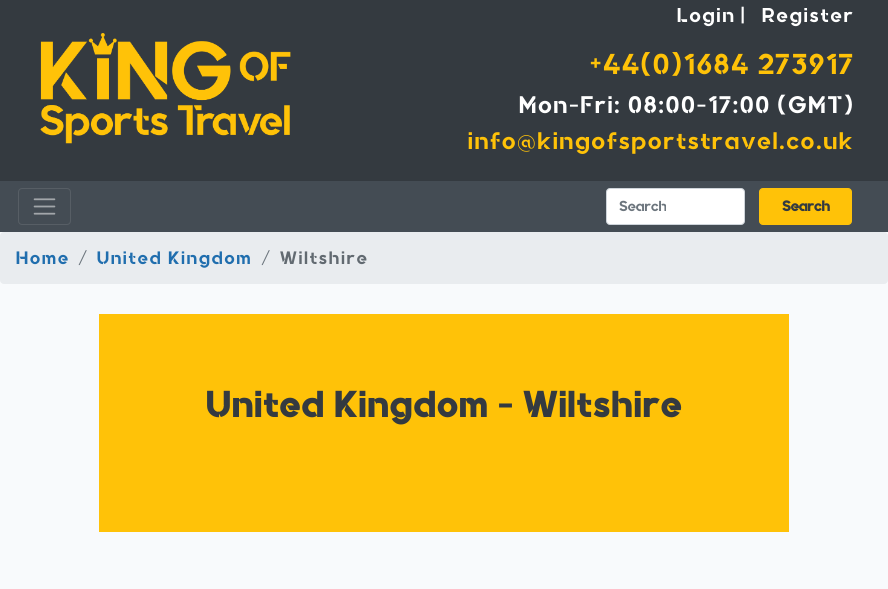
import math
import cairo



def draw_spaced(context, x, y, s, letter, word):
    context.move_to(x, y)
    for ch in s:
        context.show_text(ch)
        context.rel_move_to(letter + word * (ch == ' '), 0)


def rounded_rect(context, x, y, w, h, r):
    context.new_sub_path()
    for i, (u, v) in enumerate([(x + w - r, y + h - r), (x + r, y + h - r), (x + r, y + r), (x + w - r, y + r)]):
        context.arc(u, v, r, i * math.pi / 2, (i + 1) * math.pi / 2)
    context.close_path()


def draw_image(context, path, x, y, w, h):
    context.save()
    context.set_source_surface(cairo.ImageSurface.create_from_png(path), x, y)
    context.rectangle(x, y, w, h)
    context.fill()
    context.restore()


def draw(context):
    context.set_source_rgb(248 / 255, 250 / 255, 252 / 255)
    context.paint()
    context.set_source_rgb(52 / 255, 58 / 255, 64 / 255)
    context.rectangle(0, 0, 888, 181)
    context.fill()
    draw_image(context, "images/1.png", 40, 33, 251, 111)
    context.set_source_rgb(68 / 255, 76 / 255, 84 / 255)
    context.rectangle(0, 181, 888, 51)
    context.fill()
    rounded_rect(context, 18.5, 188.5, 52, 36, 3.5)
    context.set_source_rgb(87 / 255, 94 / 255, 101 / 255)
    context.set_line_width(1)
    context.stroke()
    draw_image(context, "images/2.png", 33, 198, 23, 17)
    context.set_source_rgb(1, 1, 1)
    rounded_rect(context, 606.5, 188.5, 138, 36, 3.5)
    context.fill_preserve()
    context.set_source_rgb(206 / 255, 212 / 255, 218 / 255)
    context.stroke()
    context.set_source_rgb(1, 194 / 255, 8 / 255)
    rounded_rect(context, 759.5, 188.5, 92, 36, 3.5)
    context.fill_preserve()
    context.stroke()
    context.set_source_rgb(233 / 255, 236 / 255, 239 / 255)
    rounded_rect(context, 0, 232, 888, 52, 4)
    context.fill()
    context.set_source_rgb(1, 194 / 255, 8 / 255)
    context.rectangle(99, 314, 690, 218)
    context.fill()
    context.select_font_face("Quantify")
    context.set_font_size(20)
    context.set_source_rgb(1, 1, 1)
    draw_spaced(context, 677, 22, "Login", 2, 0)
    draw_spaced(context, 741, 22, "|", 2, 0)
    draw_spaced(context, 762, 22, "Register", 2, 0)
    context.set_font_size(28.75)
    context.set_source_rgb(1, 194 / 255, 8 / 255)
    draw_spaced(context, 590, 74, "+44(0)1684 273917", 2, 0)
    context.set_font_size(24)
    context.set_source_rgb(1, 1, 1)
    draw_spaced(context, 519, 113, "Mon-Fri: 08:00-17:00 (GMT)", 2, 0)
    context.set_source_rgb(1, 194 / 255, 8 / 255)
    draw_spaced(context, 468, 149, "info@kingofsportstravel.co.uk", 2, 0)
    context.set_font_size(14.5)
    context.set_source_rgb(108 / 255, 117 / 255, 125 / 255)
    context.move_to(619, 211)
    context.show_text("Search")
    context.select_font_face("Quantify", cairo.FontSlant.NORMAL, cairo.FontWeight.BOLD)
    context.set_source_rgb(52 / 255, 58 / 255, 64 / 255)
    context.move_to(782, 211)
    context.show_text("Search")
    context.select_font_face("Quantify")
    context.set_font_size(18)
    context.set_source_rgb(32 / 255, 110 / 255, 174 / 255)
    draw_spaced(context, 16, 264, "Home", 2, 0)
    context.set_source_rgb(108 / 255, 117 / 255, 125 / 255)
    draw_spaced(context, 78, 264, "/", 2, 0)
    context.set_source_rgb(32 / 255, 110 / 255, 174 / 255)
    draw_spaced(context, 97, 264, "United Kingdom", 2, 0)
    context.set_source_rgb(108 / 255, 117 / 255, 125 / 255)
    draw_spaced(context, 261, 264, "/", 2, 0)
    context.set_source_rgb(98 / 255, 106 / 255, 113 / 255)
    draw_spaced(context, 280, 264, "Wiltshire", 2, 0)
    context.select_font_face("Quantify", cairo.FontSlant.NORMAL, cairo.FontWeight.BOLD)
    context.set_font_size(36)
    context.set_source_rgb(52 / 255, 58 / 255, 64 / 255)
    draw_spaced(context, 206, 417, "United Kingdom - Wiltshire", 2, 0)


surface = cairo.ImageSurface(cairo.Format.RGB24, 888, 589)
context = cairo.Context(surface)
options = cairo.FontOptions()
options.set_hint_metrics(cairo.HintMetrics.OFF)
options.set_hint_style(cairo.HintStyle.NONE)
context.set_font_options(options)
context.set_miter_limit(4)
draw(context)
surface.write_to_png("out.png")
